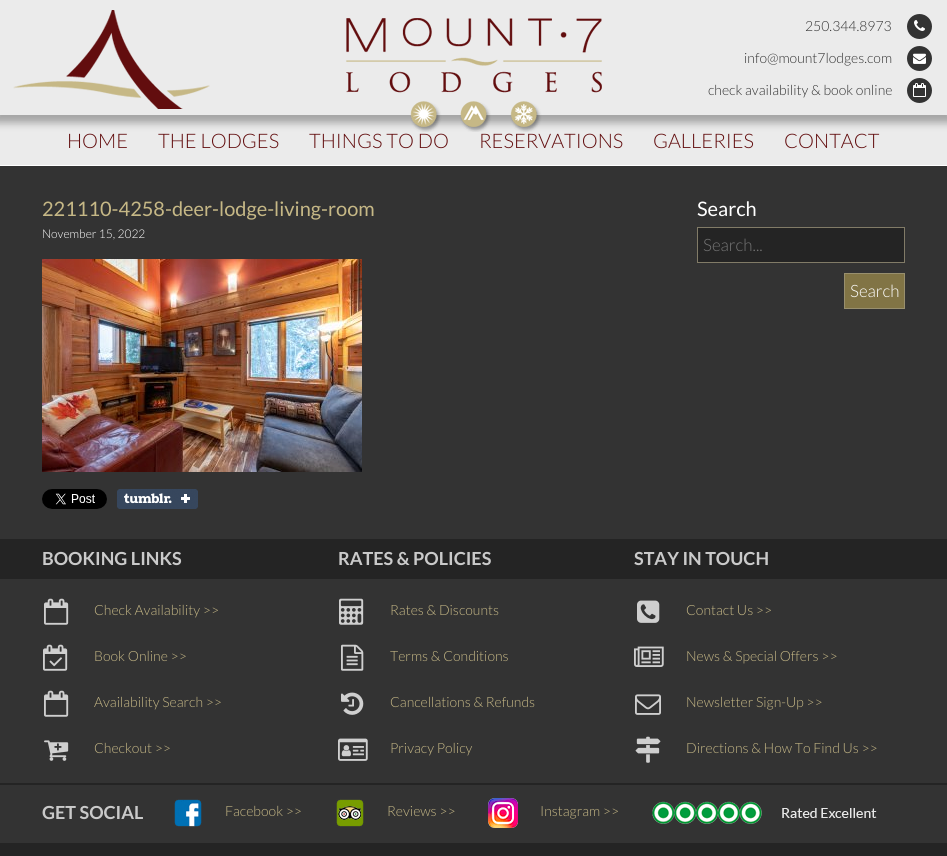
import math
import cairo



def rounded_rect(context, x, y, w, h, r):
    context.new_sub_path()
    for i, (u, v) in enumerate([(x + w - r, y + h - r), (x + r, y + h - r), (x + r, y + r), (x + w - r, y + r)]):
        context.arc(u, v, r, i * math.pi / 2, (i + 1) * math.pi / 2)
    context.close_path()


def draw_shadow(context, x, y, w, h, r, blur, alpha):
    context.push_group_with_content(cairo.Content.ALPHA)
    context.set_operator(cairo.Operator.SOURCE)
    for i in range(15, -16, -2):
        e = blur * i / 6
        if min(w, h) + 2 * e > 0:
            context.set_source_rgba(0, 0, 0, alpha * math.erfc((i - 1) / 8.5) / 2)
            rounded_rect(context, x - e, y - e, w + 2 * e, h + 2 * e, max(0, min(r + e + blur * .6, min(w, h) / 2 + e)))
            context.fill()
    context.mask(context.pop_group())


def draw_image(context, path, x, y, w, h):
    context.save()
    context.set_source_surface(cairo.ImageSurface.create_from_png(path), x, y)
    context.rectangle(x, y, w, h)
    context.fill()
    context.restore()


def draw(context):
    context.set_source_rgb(51 / 255, 51 / 255, 51 / 255)
    context.paint()
    context.set_source_rgba(1, 1, 1, 0.9)
    context.rectangle(0, 115, 947, 50)
    context.fill()
    context.set_source_rgb(0, 0, 0)
    draw_shadow(context, -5, -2, 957, 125, 0, 4, 0.3)
    context.set_source_rgb(235 / 255, 235 / 255, 235 / 255)
    context.rectangle(0, 0, 947, 115)
    context.fill()
    draw_image(context, "images/1.png", 13, 10, 197, 99)
    draw_image(context, "images/2.png", 346, 18, 256, 114)
    context.set_source_rgb(51 / 255, 51 / 255, 51 / 255)
    context.arc(919.5, 26.5, 12.5, 0, 2 * math.pi)
    context.fill()
    draw_image(context, "images/3.png", 914, 20, 11, 11)
    context.arc(919.5, 58.5, 12.5, 0, 2 * math.pi)
    context.fill()
    draw_image(context, "images/4.png", 913, 53, 13, 11)
    context.arc(919.5, 90.5, 12.5, 0, 2 * math.pi)
    context.fill()
    draw_image(context, "images/5.png", 913, 83, 13, 14)
    context.set_source_rgb(1, 1, 1)
    context.rectangle(0, 165, 947, 1)
    context.fill()
    draw_image(context, "images/6.png", 42, 259, 320, 213)
    context.set_source_rgb(36 / 255, 36 / 255, 36 / 255)
    context.rectangle(697.5, 227.5, 207, 35)
    context.fill_preserve()
    context.set_source_rgb(129 / 255, 123 / 255, 103 / 255)
    context.set_line_width(1)
    context.stroke()
    context.set_source_rgb(129 / 255, 116 / 255, 69 / 255)
    context.rectangle(844.5, 273.5, 60, 35)
    context.fill_preserve()
    context.set_source_rgb(152 / 255, 143 / 255, 110 / 255)
    context.stroke()
    draw_image(context, "images/7.png", 42, 489, 65, 20)
    draw_image(context, "images/8.png", 117, 489, 81, 20)
    context.set_source_rgb(36 / 255, 36 / 255, 36 / 255)
    context.rectangle(0, 539, 947, 40)
    context.fill()
    draw_image(context, "images/9.png", 44, 598, 25, 27)
    draw_image(context, "images/10.png", 43, 644, 25, 27)
    draw_image(context, "images/9.png", 44, 690, 25, 27)
    draw_image(context, "images/11.png", 44, 740, 25, 21)
    draw_image(context, "images/12.png", 339, 598, 25, 27)
    draw_image(context, "images/13.png", 341, 644, 23, 27)
    draw_image(context, "images/14.png", 341, 692, 23, 23)
    draw_image(context, "images/15.png", 338, 738, 30, 23)
    draw_image(context, "images/16.png", 637, 600, 23, 23)
    draw_image(context, "images/17.png", 634, 646, 30, 21)
    draw_image(context, "images/18.png", 635, 694, 26, 21)
    draw_image(context, "images/19.png", 635, 736, 26, 27)
    context.rectangle(0, 783, 947, 2)
    context.fill()
    draw_image(context, "images/20.png", 174, 799, 28, 28)
    draw_image(context, "images/21.png", 336, 799, 28, 28)
    draw_image(context, "images/22.png", 488, 798, 30, 30)
    draw_image(context, "images/23.png", 652, 801, 225, 23)
    context.rectangle(0, 843, 947, 13)
    context.fill()
    context.select_font_face("Lato Light")
    context.set_font_size(14)
    context.set_source_rgb(51 / 255, 51 / 255, 51 / 255)
    context.move_to(805, 31)
    context.show_text("250.344.8973")
    context.move_to(744, 63)
    context.show_text("info@mount7lodges.com")
    context.move_to(708, 95)
    context.show_text("check availability & book online")
    context.set_font_size(20)
    context.set_source_rgb(98 / 255, 13 / 255, 14 / 255)
    context.move_to(67, 148)
    context.show_text("HOME")
    context.move_to(158, 148)
    context.show_text("THE LODGES")
    context.move_to(309, 148)
    context.show_text("THINGS TO DO")
    context.move_to(479, 148)
    context.show_text("RESERVATIONS")
    context.move_to(653, 148)
    context.show_text("GALLERIES")
    context.move_to(784, 148)
    context.show_text("CONTACT")
    context.select_font_face("Lato")
    context.set_source_rgb(198 / 255, 184 / 255, 134 / 255)
    context.move_to(42, 216)
    context.show_text("221110-4258-deer-lodge-living-room")
    context.select_font_face("Lato Light")
    context.set_font_size(12)
    context.set_source_rgb(1, 1, 1)
    context.move_to(42, 238)
    context.show_text("November 15, 2022")
    context.select_font_face("Lato")
    context.set_font_size(20)
    context.move_to(697, 216)
    context.show_text("Search")
    context.select_font_face("Lato Light")
    context.set_font_size(17)
    context.set_source_rgb(117 / 255, 117 / 255, 117 / 255)
    context.move_to(703, 251)
    context.show_text("Search...")
    context.set_source_rgb(1, 1, 1)
    context.move_to(850, 297)
    context.show_text("Search")
    context.select_font_face("Lato", cairo.FontSlant.NORMAL, cairo.FontWeight.BOLD)
    context.set_font_size(18)
    context.set_source_rgb(202 / 255, 202 / 255, 202 / 255)
    context.move_to(42, 565)
    context.show_text("BOOKING LINKS")
    context.select_font_face("Lato Light")
    context.set_font_size(14)
    context.set_source_rgb(198 / 255, 184 / 255, 134 / 255)
    context.move_to(94, 615)
    context.show_text("Check Availability >>")
    context.move_to(94, 661)
    context.show_text("Book Online >>")
    context.move_to(94, 707)
    context.show_text("Availability Search >>")
    context.move_to(94, 753)
    context.show_text("Checkout >>")
    context.select_font_face("Lato", cairo.FontSlant.NORMAL, cairo.FontWeight.BOLD)
    context.set_font_size(18)
    context.set_source_rgb(202 / 255, 202 / 255, 202 / 255)
    context.move_to(338, 565)
    context.show_text("RATES & POLICIES")
    context.select_font_face("Lato Light")
    context.set_font_size(14)
    context.set_source_rgb(198 / 255, 184 / 255, 134 / 255)
    context.move_to(390, 615)
    context.show_text("Rates & Discounts")
    context.move_to(390, 661)
    context.show_text("Terms & Conditions")
    context.move_to(390, 707)
    context.show_text("Cancellations & Refunds")
    context.move_to(390, 753)
    context.show_text("Privacy Policy")
    context.select_font_face("Lato", cairo.FontSlant.NORMAL, cairo.FontWeight.BOLD)
    context.set_font_size(18)
    context.set_source_rgb(202 / 255, 202 / 255, 202 / 255)
    context.move_to(634, 565)
    context.show_text("STAY IN TOUCH")
    context.select_font_face("Lato Light")
    context.set_font_size(14)
    context.set_source_rgb(198 / 255, 184 / 255, 134 / 255)
    context.move_to(686, 615)
    context.show_text("Contact Us >>")
    context.move_to(686, 661)
    context.show_text("News & Special Offers >>")
    context.move_to(686, 707)
    context.show_text("Newsletter Sign-Up >>")
    context.move_to(686, 753)
    context.show_text("Directions & How To Find Us >>")
    context.select_font_face("Lato", cairo.FontSlant.NORMAL, cairo.FontWeight.BOLD)
    context.set_font_size(18)
    context.set_source_rgb(202 / 255, 202 / 255, 202 / 255)
    context.move_to(42, 819)
    context.show_text("GET SOCIAL")
    context.select_font_face("Lato Light")
    context.set_font_size(14)
    context.set_source_rgb(198 / 255, 184 / 255, 134 / 255)
    context.move_to(225, 816)
    context.show_text("Facebook >>")
    context.move_to(387, 816)
    context.show_text("Reviews >>")
    context.move_to(540, 816)
    context.show_text("Instagram >>")


surface = cairo.ImageSurface(cairo.Format.RGB24, 947, 856)
context = cairo.Context(surface)
options = cairo.FontOptions()
options.set_hint_metrics(cairo.HintMetrics.OFF)
options.set_hint_style(cairo.HintStyle.NONE)
context.set_font_options(options)
context.set_miter_limit(4)
draw(context)
surface.write_to_png("out.png")
